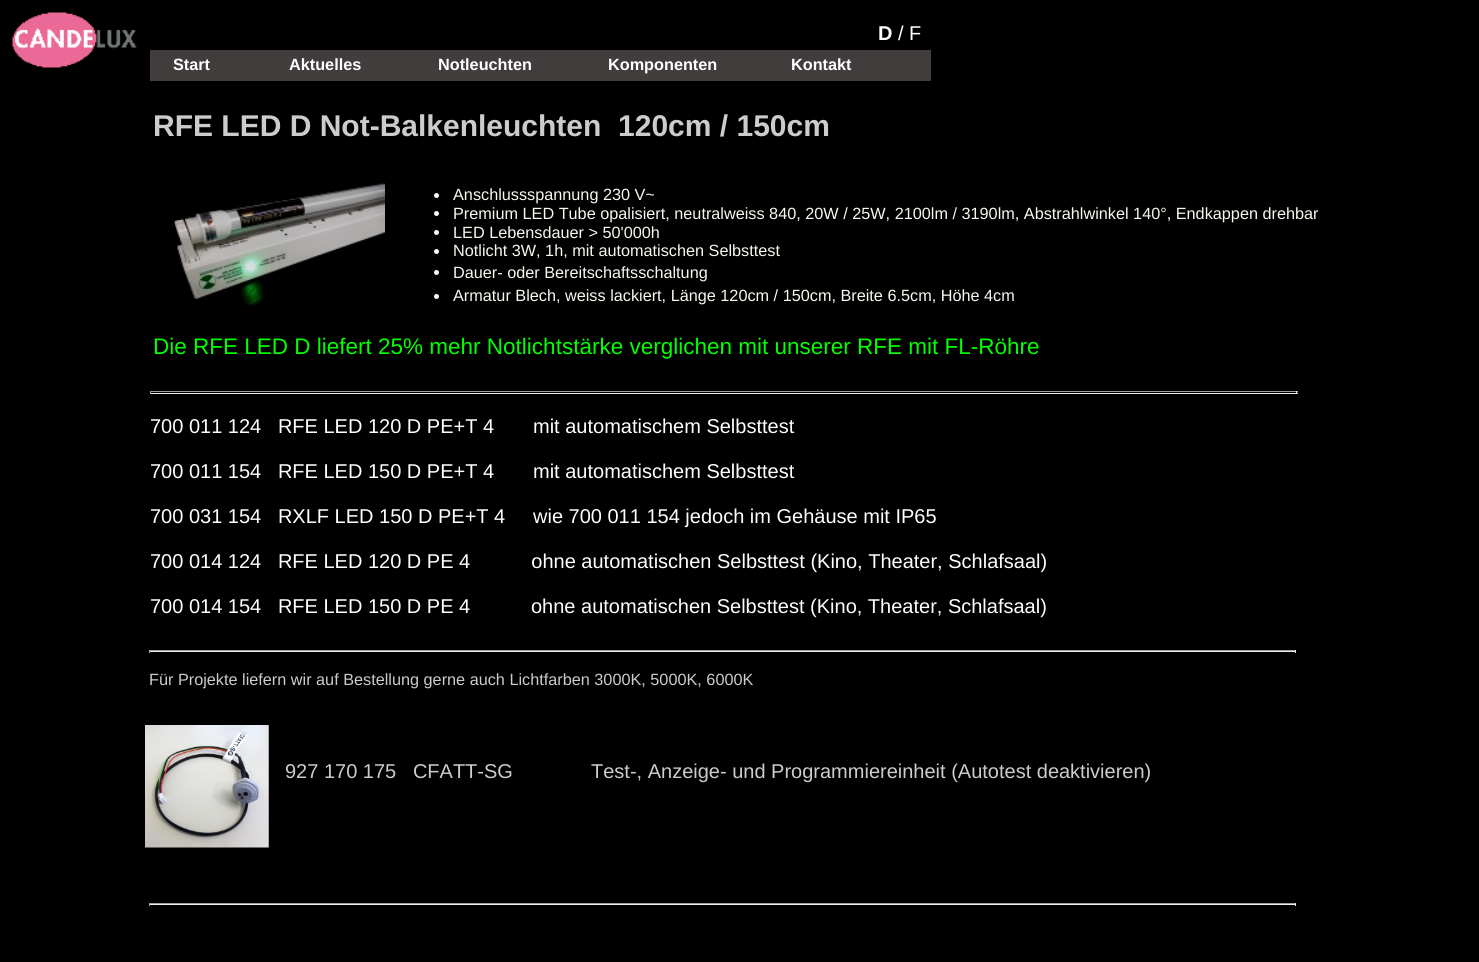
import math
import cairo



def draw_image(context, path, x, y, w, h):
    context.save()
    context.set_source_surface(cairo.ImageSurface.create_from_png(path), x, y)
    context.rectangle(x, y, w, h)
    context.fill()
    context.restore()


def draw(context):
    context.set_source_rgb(0, 0, 0)
    context.paint()
    draw_image(context, "images/1.png", 12, 12, 125, 56)
    context.set_source_rgb(159 / 255, 159 / 255, 159 / 255)
    context.rectangle(149, 650, 1147, 1)
    context.fill()
    context.set_source_rgb(238 / 255, 238 / 255, 238 / 255)
    context.rectangle(1295, 650, 1, 3)
    context.fill()
    context.rectangle(149, 651, 1147, 1)
    context.fill()
    context.set_source_rgb(159 / 255, 159 / 255, 159 / 255)
    context.rectangle(149, 650, 1, 3)
    context.fill()
    draw_image(context, "images/2.png", 145, 725, 124, 123)
    context.rectangle(149, 903, 1147, 1)
    context.fill()
    context.set_source_rgb(238 / 255, 238 / 255, 238 / 255)
    context.rectangle(1295, 903, 1, 3)
    context.fill()
    context.rectangle(149, 904, 1147, 1)
    context.fill()
    context.set_source_rgb(159 / 255, 159 / 255, 159 / 255)
    context.rectangle(149, 903, 1, 3)
    context.fill()
    context.set_source_rgb(65 / 255, 61 / 255, 61 / 255)
    context.rectangle(150, 50, 781, 31)
    context.fill()
    context.set_source_rgb(159 / 255, 159 / 255, 159 / 255)
    context.rectangle(150, 391, 1148, 1)
    context.fill()
    context.set_source_rgb(238 / 255, 238 / 255, 238 / 255)
    context.rectangle(1296, 391, 1, 3)
    context.fill()
    context.rectangle(150, 393, 1148, 1)
    context.fill()
    context.set_source_rgb(159 / 255, 159 / 255, 159 / 255)
    context.rectangle(150, 391, 1, 3)
    context.fill()
    draw_image(context, "images/3.png", 173, 182, 212, 124)
    context.set_source_rgb(248 / 255, 248 / 255, 239 / 255)
    context.arc(436.5, 195.5, 2.5, 0, 2 * math.pi)
    context.fill()
    context.arc(436.5, 213.5, 2.5, 0, 2 * math.pi)
    context.fill()
    context.arc(436.5, 232.5, 2.5, 0, 2 * math.pi)
    context.fill()
    context.arc(436.5, 251.5, 2.5, 0, 2 * math.pi)
    context.fill()
    context.arc(436.5, 272.5, 2.5, 0, 2 * math.pi)
    context.fill()
    context.arc(436.5, 296.5, 2.5, 0, 2 * math.pi)
    context.fill()
    context.select_font_face("Liberation Sans", cairo.FontSlant.NORMAL, cairo.FontWeight.BOLD)
    context.set_font_size(20)
    context.set_source_rgb(1, 1, 1)
    context.move_to(878, 40)
    context.show_text("D")
    context.select_font_face("Liberation Sans")
    context.move_to(898, 40)
    context.show_text("/ F")
    context.move_to(150, 433)
    context.show_text("700 011 124   RFE LED 120 D PE+T 4")
    context.move_to(533, 433)
    context.show_text("mit automatischem Selbsttest")
    context.move_to(150, 478)
    context.show_text("700 011 154   RFE LED 150 D PE+T 4")
    context.move_to(533, 478)
    context.show_text("mit automatischem Selbsttest")
    context.move_to(150, 523)
    context.show_text("700 031 154   RXLF LED 150 D PE+T 4     wie 700 011 154 jedoch im Gehäuse mit IP65")
    context.move_to(150, 568)
    context.show_text("700 014 124   RFE LED 120 D PE 4           ohne automatischen Selbsttest (Kino, Theater, Schlafsaal)")
    context.move_to(150, 613)
    context.show_text("700 014 154   RFE LED 150 D PE 4")
    context.move_to(531, 613)
    context.show_text("ohne automatischen Selbsttest (Kino, Theater, Schlafsaal)")
    context.set_font_size(16.25)
    context.set_source_rgb(204 / 255, 204 / 255, 204 / 255)
    context.move_to(149, 685)
    context.show_text("Für Projekte liefern wir auf Bestellung gerne auch Lichtfarben 3000K, 5000K, 6000K")
    context.set_font_size(20)
    context.move_to(285, 778)
    context.show_text("927 170 175   CFATT-SG")
    context.move_to(591, 778)
    context.show_text("Test-, Anzeige- und Programmiereinheit (Autotest deaktivieren)")
    context.select_font_face("Liberation Sans", cairo.FontSlant.NORMAL, cairo.FontWeight.BOLD)
    context.set_font_size(16.25)
    context.set_source_rgb(1, 1, 1)
    context.move_to(173, 70)
    context.show_text("Start")
    context.move_to(289, 70)
    context.show_text("Aktuelles")
    context.move_to(438, 70)
    context.show_text("Notleuchten")
    context.move_to(608, 70)
    context.show_text("Komponenten")
    context.move_to(791, 70)
    context.show_text("Kontakt")
    context.set_font_size(30)
    context.set_source_rgb(204 / 255, 204 / 255, 204 / 255)
    context.move_to(153, 136)
    context.show_text("RFE LED D Not-Balkenleuchten  120cm / 150cm")
    context.select_font_face("Liberation Sans")
    context.set_font_size(16.25)
    context.set_source_rgb(248 / 255, 248 / 255, 239 / 255)
    context.move_to(453, 200)
    context.show_text("Anschlussspannung 230 V~")
    context.move_to(453, 219)
    context.show_text("Premium LED Tube opalisiert, neutralweiss 840, 20W / 25W, 2100lm / 3190lm, Abstrahlwinkel 140°, Endkappen drehbar")
    context.move_to(453, 238)
    context.show_text("LED Lebensdauer > 50'000h")
    context.move_to(453, 256)
    context.show_text("Notlicht 3W, 1h, mit automatischen Selbsttest")
    context.move_to(453, 278)
    context.show_text("Dauer- oder Bereitschaftsschaltung")
    context.move_to(453, 301)
    context.show_text("Armatur Blech, weiss lackiert, Länge 120cm / 150cm, Breite 6.5cm, Höhe 4cm")
    context.set_font_size(22.5)
    context.set_source_rgb(0, 1, 0)
    context.move_to(153, 354)
    context.show_text("Die RFE LED D liefert 25% mehr Notlichtstärke verglichen mit unserer RFE mit FL-Röhre")


surface = cairo.ImageSurface(cairo.Format.RGB24, 1479, 962)
context = cairo.Context(surface)
options = cairo.FontOptions()
options.set_hint_metrics(cairo.HintMetrics.OFF)
options.set_hint_style(cairo.HintStyle.NONE)
context.set_font_options(options)
context.set_miter_limit(4)
draw(context)
surface.write_to_png("out.png")
